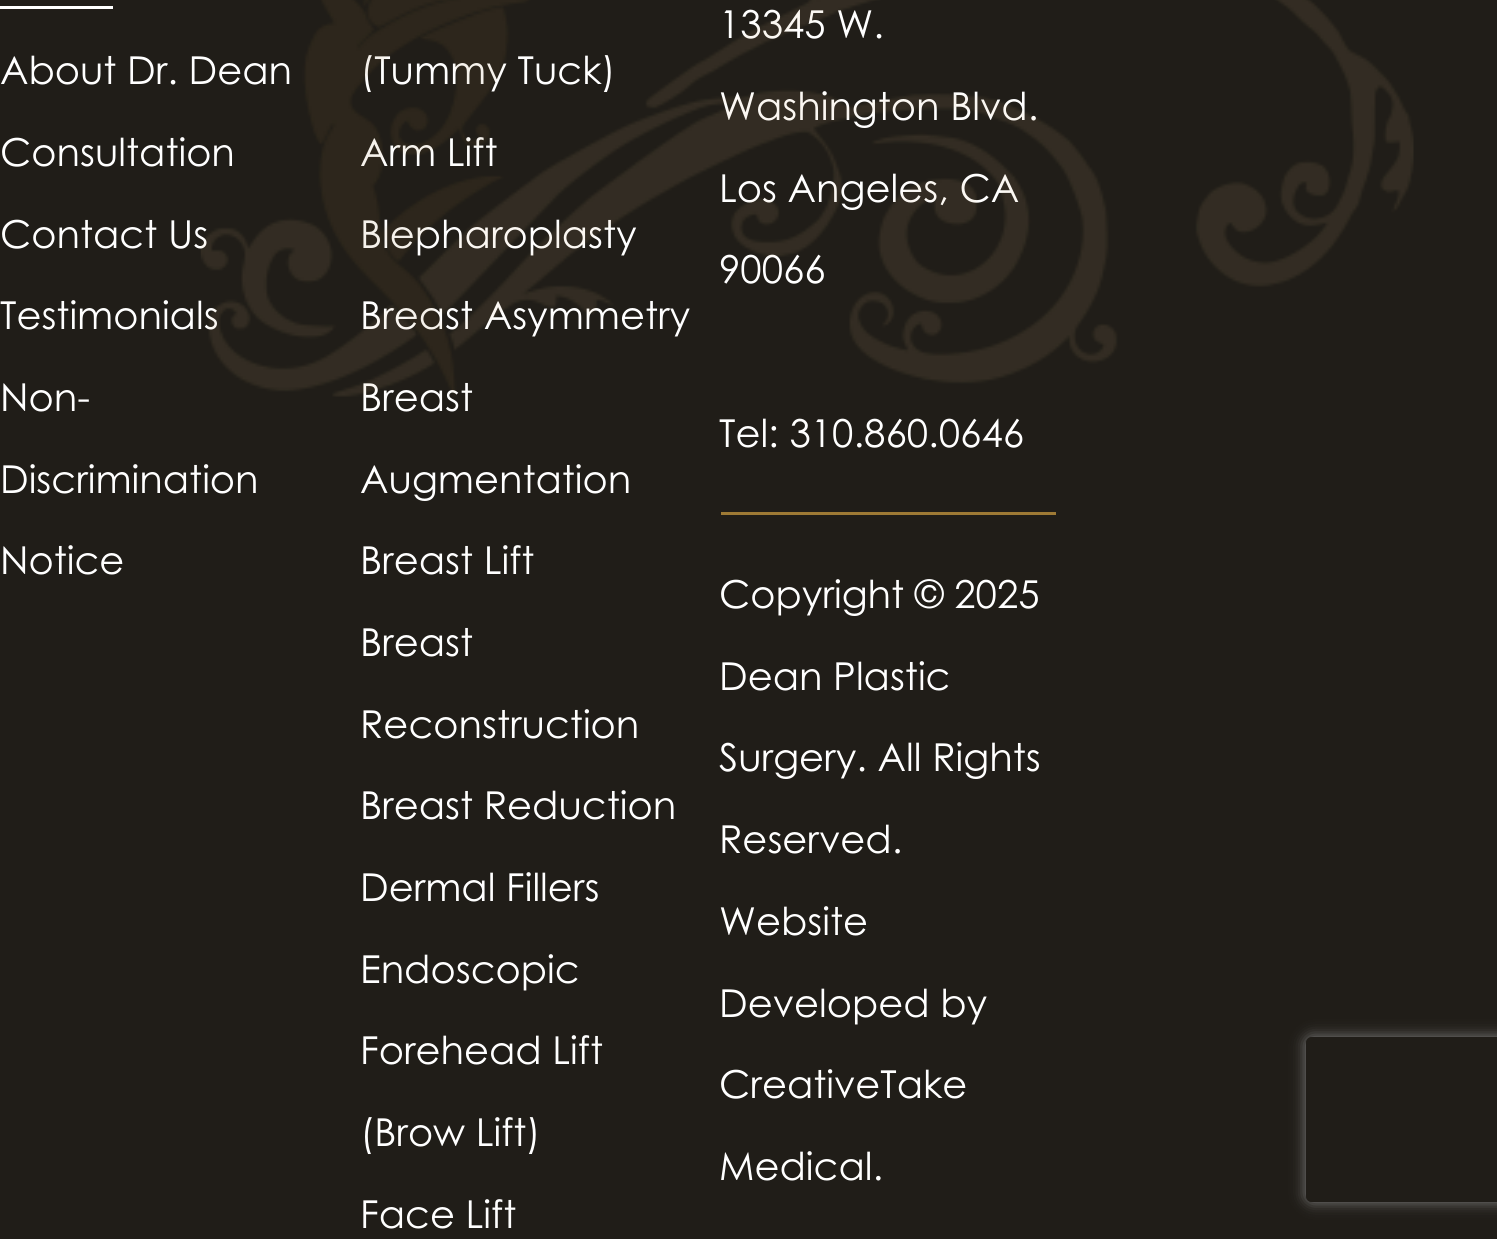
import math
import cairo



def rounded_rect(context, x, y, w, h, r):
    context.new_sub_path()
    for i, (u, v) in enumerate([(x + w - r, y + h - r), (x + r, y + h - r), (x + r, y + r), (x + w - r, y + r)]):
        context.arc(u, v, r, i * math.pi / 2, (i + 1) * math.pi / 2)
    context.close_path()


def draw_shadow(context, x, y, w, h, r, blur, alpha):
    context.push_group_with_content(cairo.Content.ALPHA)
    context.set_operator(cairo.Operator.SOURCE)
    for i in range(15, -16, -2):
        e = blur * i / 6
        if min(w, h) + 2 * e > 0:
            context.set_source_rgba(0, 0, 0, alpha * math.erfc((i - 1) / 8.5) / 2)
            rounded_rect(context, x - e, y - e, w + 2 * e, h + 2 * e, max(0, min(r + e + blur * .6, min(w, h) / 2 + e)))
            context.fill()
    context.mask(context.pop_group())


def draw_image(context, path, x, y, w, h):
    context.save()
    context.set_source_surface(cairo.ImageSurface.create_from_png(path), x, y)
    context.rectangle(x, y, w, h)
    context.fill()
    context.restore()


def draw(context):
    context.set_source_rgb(32 / 255, 29 / 255, 24 / 255)
    context.paint()
    context.set_source_rgb(1, 1, 1)
    context.rectangle(0, 6, 113, 3)
    context.fill()
    context.set_source_rgb(158 / 255, 122 / 255, 53 / 255)
    context.rectangle(721, 512, 335, 3)
    context.fill()
    context.save()
    context.set_fill_rule(cairo.FillRule.EVEN_ODD)
    context.new_path()
    context.move_to(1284, 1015)
    context.line_to(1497, 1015)
    context.line_to(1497, 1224)
    context.line_to(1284, 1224)
    context.close_path()
    context.move_to(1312, 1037)
    context.line_to(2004, 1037)
    context.curve_to(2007.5, 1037, 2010, 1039.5, 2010, 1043)
    context.line_to(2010, 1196)
    context.curve_to(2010, 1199.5, 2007.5, 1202, 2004, 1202)
    context.line_to(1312, 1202)
    context.curve_to(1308.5, 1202, 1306, 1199.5, 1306, 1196)
    context.line_to(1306, 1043)
    context.curve_to(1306, 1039.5, 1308.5, 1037, 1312, 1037)
    context.close_path()
    context.clip()
    context.set_source_rgb(128 / 255, 128 / 255, 128 / 255)
    draw_shadow(context, 1306, 1037, 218, 165, 6, 7, 1)
    context.restore()
    context.select_font_face("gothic")
    context.set_font_size(38.5)
    context.set_source_rgb(1, 1, 1)
    context.move_to(0, 84)
    context.show_text("About Dr. Dean")
    context.move_to(0, 166)
    context.show_text("Consultation")
    context.move_to(0, 248)
    context.show_text("Contact Us")
    context.move_to(0, 329)
    context.show_text("Testimonials")
    context.move_to(0, 411)
    context.show_text("Non-")
    context.move_to(0, 493)
    context.show_text("Discrimination")
    context.move_to(0, 574)
    context.show_text("Notice")
    context.move_to(360, 84)
    context.show_text("(Tummy Tuck)")
    context.move_to(360, 166)
    context.show_text("Arm Lift")
    context.move_to(360, 248)
    context.show_text("Blepharoplasty")
    context.move_to(360, 329)
    context.show_text("Breast Asymmetry")
    context.move_to(360, 411)
    context.show_text("Breast")
    context.move_to(360, 493)
    context.show_text("Augmentation")
    context.move_to(360, 574)
    context.show_text("Breast Lift")
    context.move_to(360, 656)
    context.show_text("Breast")
    context.move_to(360, 738)
    context.show_text("Reconstruction")
    context.move_to(360, 819)
    context.show_text("Breast Reduction")
    context.move_to(360, 901)
    context.show_text("Dermal Fillers")
    context.move_to(360, 983)
    context.show_text("Endoscopic")
    context.move_to(360, 1064)
    context.show_text("Forehead Lift")
    context.move_to(360, 1146)
    context.show_text("(Brow Lift)")
    context.move_to(360, 1228)
    context.show_text("Face Lift")
    context.move_to(719, 38)
    context.show_text("13345 W.")
    context.move_to(719, 120)
    context.show_text("Washington Blvd.")
    context.move_to(719, 202)
    context.show_text("Los Angeles, CA")
    context.move_to(719, 283)
    context.show_text("90066")
    draw_image(context, "images/1.png", 200, 0, 1214, 397)
    context.move_to(719, 447)
    context.show_text("Tel: 310.860.0646")
    context.move_to(719, 608)
    context.show_text("Copyright © 2025")
    context.move_to(719, 690)
    context.show_text("Dean Plastic")
    context.move_to(719, 771)
    context.show_text("Surgery. All Rights")
    context.move_to(719, 853)
    context.show_text("Reserved.")
    context.move_to(719, 935)
    context.show_text("Website")
    context.move_to(719, 1017)
    context.show_text("Developed by")
    context.move_to(719, 1098)
    context.show_text("CreativeTake")
    context.move_to(719, 1180)
    context.show_text("Medical.")


surface = cairo.ImageSurface(cairo.Format.RGB24, 1497, 1239)
context = cairo.Context(surface)
options = cairo.FontOptions()
options.set_hint_metrics(cairo.HintMetrics.OFF)
options.set_hint_style(cairo.HintStyle.NONE)
context.set_font_options(options)
context.set_miter_limit(4)
draw(context)
surface.write_to_png("out.png")
